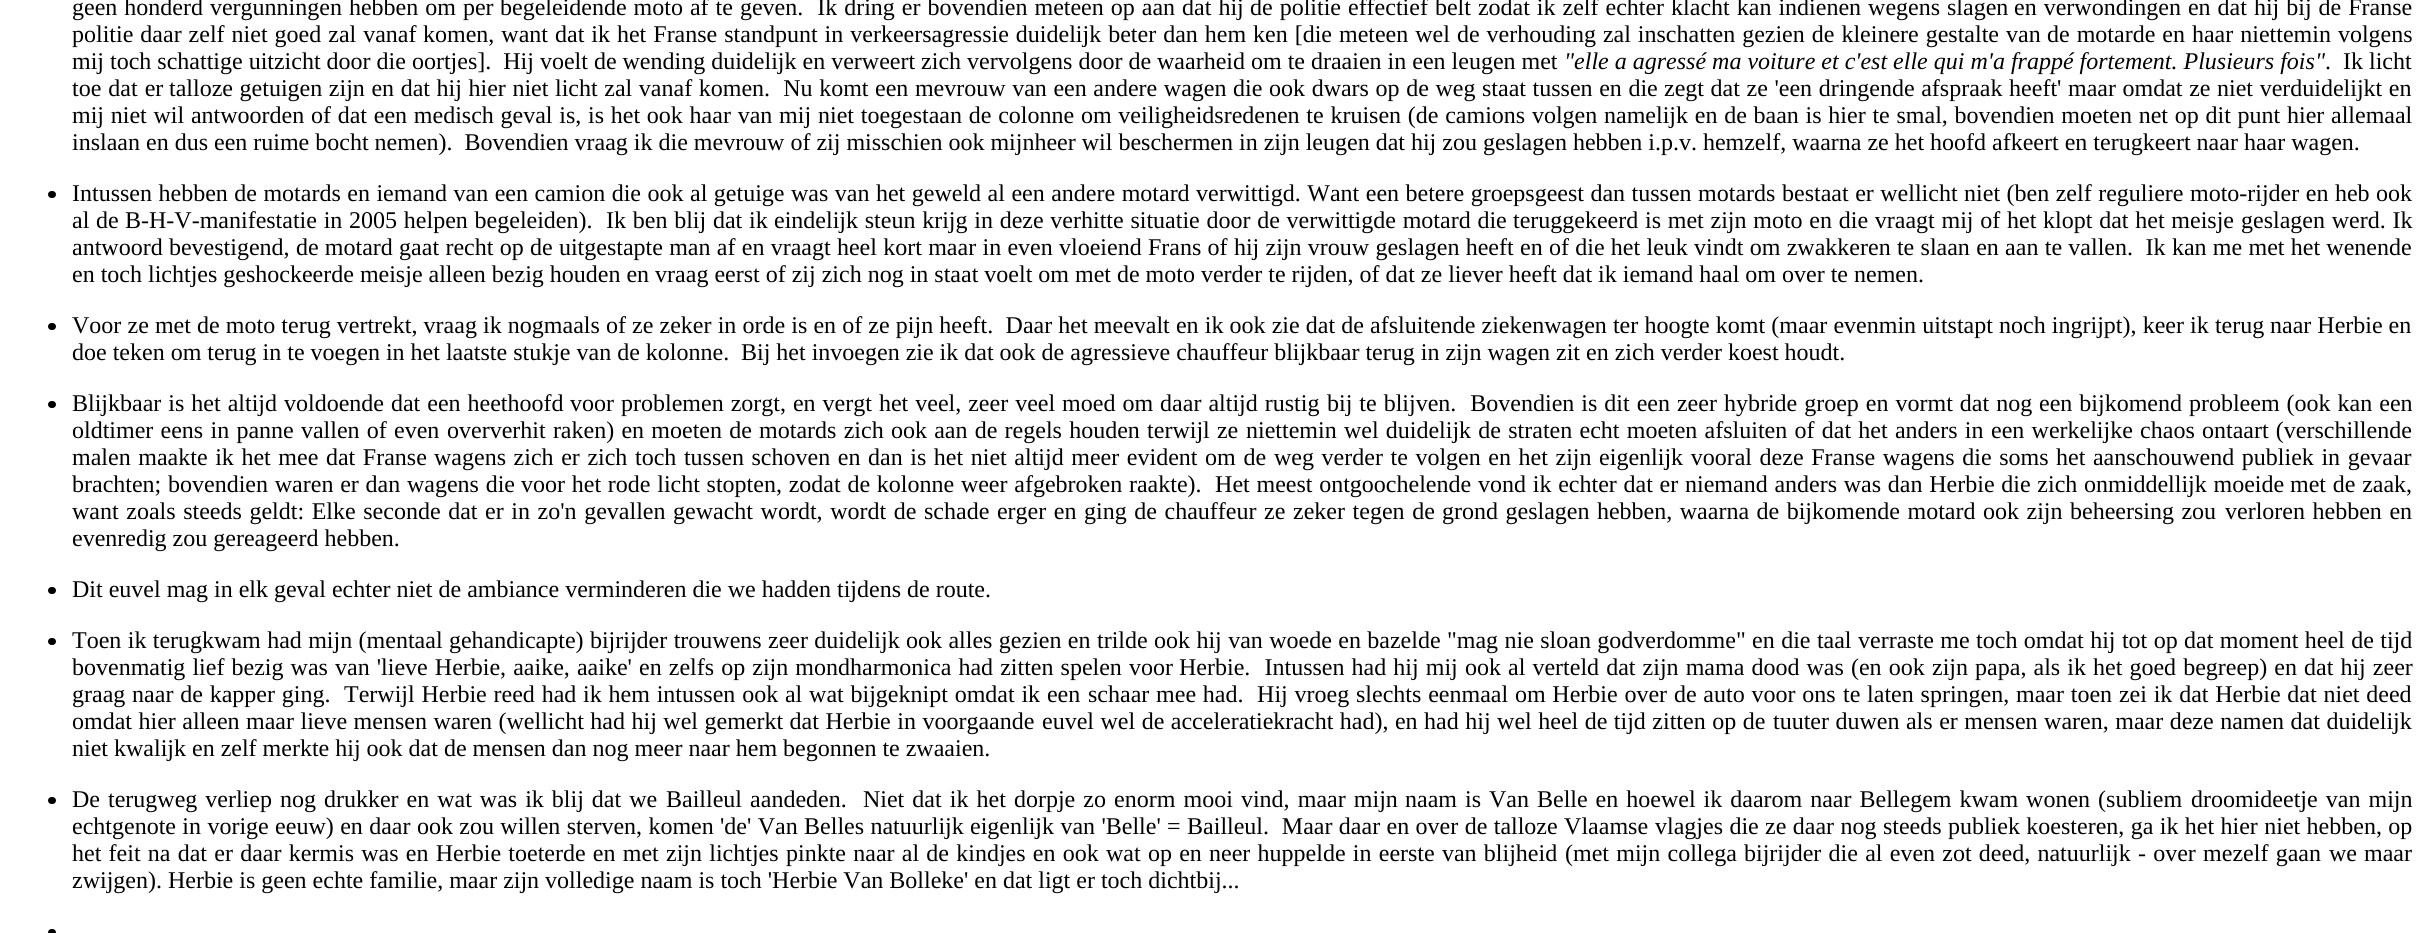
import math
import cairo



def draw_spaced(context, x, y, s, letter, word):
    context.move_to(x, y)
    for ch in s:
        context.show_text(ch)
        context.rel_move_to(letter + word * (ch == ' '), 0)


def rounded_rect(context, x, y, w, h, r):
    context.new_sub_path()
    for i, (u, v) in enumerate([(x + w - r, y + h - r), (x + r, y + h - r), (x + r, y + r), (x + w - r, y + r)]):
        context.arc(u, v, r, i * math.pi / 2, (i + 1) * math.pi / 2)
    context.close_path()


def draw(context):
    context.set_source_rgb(1, 1, 1)
    context.paint()
    context.set_source_rgb(0, 0, 0)
    rounded_rect(context, 48, 191, 8, 7, 3.5)
    context.fill()
    rounded_rect(context, 48, 323, 8, 7, 3.5)
    context.fill()
    rounded_rect(context, 48, 401, 8, 7, 3.5)
    context.fill()
    rounded_rect(context, 48, 587, 8, 7, 3.5)
    context.fill()
    rounded_rect(context, 48, 638, 8, 7, 3.5)
    context.fill()
    rounded_rect(context, 48, 797, 8, 7, 3.5)
    context.fill()
    rounded_rect(context, 48, 929, 8, 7, 3.5)
    context.fill()
    context.select_font_face("Liberation Serif")
    context.set_font_size(24)
    draw_spaced(context, 72, 15, "geen honderd vergunningen hebben om per", 0, 1)
    draw_spaced(context, 500, 15, "begeleidende moto af te geven.  Ik dring er bovendien meteen op aan dat hij", 0, 1)
    draw_spaced(context, 1250, 15, "de politie effectief belt zodat ik zelf echter klacht kan indienen wegens slagen", 0, 1)
    draw_spaced(context, 2014, 15, "en verwondingen en dat hij bij de Franse", 0, 1)
    draw_spaced(context, 72, 42, "politie daar zelf niet goed zal vanaf", 0, 1)
    draw_spaced(context, 423, 42, "komen, want dat ik het Franse standpunt in verkeersagressie duidelijk beter dan hem", 0, 1)
    draw_spaced(context, 1253, 42, "ken [die meteen wel de verhouding zal inschatten gezien de kleinere gestalte van", 0, 1)
    draw_spaced(context, 2047, 42, "de motarde en haar niettemin volgens", 0, 1)
    context.move_to(72, 69)
    context.show_text("mij toch schattige uitzicht door die oortjes].  Hij voelt de wending duidelijk en verweert zich vervolgens door de waarheid om te draaien in een leugen met")
    context.select_font_face("Liberation Serif", cairo.FontSlant.ITALIC)
    context.move_to(1564, 69)
    context.show_text("\"elle a agressé ma voiture et c'est elle qui m'a frappé fortement. Plusieurs fois\"")
    context.select_font_face("Liberation Serif")
    context.move_to(2325, 69)
    context.show_text(".  Ik licht")
    draw_spaced(context, 72, 96, "toe dat er", 0, 1)
    draw_spaced(context, 169, 96, "talloze getuigen zijn en dat hij hier niet licht zal vanaf komen.  Nu komt", 0, 0.6)
    draw_spaced(context, 875, 96, "een mevrouw van een andere wagen die ook dwars op de weg staat tussen en die", 0, 0.6)
    draw_spaced(context, 1664, 96, "zegt dat ze 'een dringende afspraak heeft' maar omdat ze niet verduidelijkt en", 0, 0.6)
    draw_spaced(context, 72, 123, "mij niet wil antwoorden of dat een medisch geval is, is het ook haar van mij", 0, 0.75)
    draw_spaced(context, 818, 123, "niet toegestaan de colonne om veiligheidsredenen te kruisen (de camions volgen", 0, 0.75)
    draw_spaced(context, 1604, 123, "namelijk en de baan is hier te smal, bovendien moeten net op dit punt hier", 0, 0.75)
    context.move_to(2331, 123)
    context.show_text("allemaal")
    context.move_to(72, 150)
    context.show_text("inslaan en dus een ruime bocht nemen).  Bovendien vraag ik die mevrouw of zij misschien ook mijnheer wil beschermen in zijn leugen dat hij zou geslagen hebben i.p.v. hemzelf, waarna ze het hoofd afkeert en terugkeert naar haar wagen.")
    draw_spaced(context, 72, 201, "Intussen hebben de motards en iemand van een camion die ook", 0, 0.5)
    draw_spaced(context, 690, 201, "al getuige was van het geweld al een andere motard verwittigd. Want een betere groepsgeest dan tussen motards", 0, 0.5)
    draw_spaced(context, 1782, 201, "bestaat er wellicht niet (ben zelf reguliere moto-rijder en heb ook", 0, 0.5)
    draw_spaced(context, 72, 228, "al de", 0, 0.75)
    draw_spaced(context, 125, 228, "B-H-V-manifestatie in 2005 helpen begeleiden).  Ik ben blij dat ik", 0, 0.75)
    draw_spaced(context, 774, 228, "eindelijk steun krijg in deze verhitte situatie door de verwittigde motard die", 0, 0.75)
    draw_spaced(context, 1513, 228, "teruggekeerd is met zijn moto en die vraagt mij of het klopt dat het meisje", 0, 0.75)
    draw_spaced(context, 2241, 228, "geslagen werd. Ik", 0, 0.75)
    draw_spaced(context, 72, 255, "antwoord bevestigend, de motard gaat recht op de uitgestapte man af en vraagt heel kort maar in even vloeiend Frans of hij zijn vrouw geslagen heeft en of die het leuk vindt om zwakkeren te slaan en aan te vallen.  Ik kan me met het wenende", 0, 0.3)
    context.move_to(72, 282)
    context.show_text("en toch lichtjes geshockeerde meisje alleen bezig houden en vraag eerst of zij zich nog in staat voelt om met de moto verder te rijden, of dat ze liever heeft dat ik iemand haal om over te nemen.")
    draw_spaced(context, 72, 333, "Voor ze met de moto terug vertrekt, vraag ik nogmaals of ze zeker in orde is en of ze pijn heeft.  Daar het meevalt en ik ook zie dat de afsluitende ziekenwagen ter hoogte komt (maar evenmin uitstapt noch ingrijpt), keer ik terug", 0, 0.15)
    context.move_to(2270, 333)
    context.show_text("naar Herbie en")
    context.move_to(72, 360)
    context.show_text("doe teken om terug in te voegen in het laatste stukje van de kolonne.")
    context.move_to(741, 360)
    context.show_text("Bij het invoegen zie ik dat ook de agressieve chauffeur blijkbaar terug in zijn wagen zit en zich verder koest houdt.")
    draw_spaced(context, 72, 411, "Blijkbaar is het altijd voldoende dat een heethoofd", 0, 1)
    draw_spaced(context, 570, 411, "voor problemen zorgt, en vergt het veel, zeer veel moed om daar altijd rustig", 0, 1)
    draw_spaced(context, 1327, 411, "bij te blijven.  Bovendien is dit een zeer hybride groep en vormt dat nog", 0, 1)
    draw_spaced(context, 2039, 411, "een bijkomend probleem (ook kan een", 0, 1)
    draw_spaced(context, 72, 438, "oldtimer eens in panne vallen of even", 0, 1.25)
    draw_spaced(context, 447, 438, "oververhit raken) en moeten de motards zich ook aan de regels houden terwijl ze", 0, 1.25)
    draw_spaced(context, 1246, 438, "niettemin wel duidelijk de straten echt moeten afsluiten of dat het anders in", 0, 1.25)
    draw_spaced(context, 1991, 438, "een werkelijke chaos ontaart (verschillende", 0, 1.25)
    draw_spaced(context, 72, 465, "malen maakte ik het mee dat Franse", 0, 1.6)
    draw_spaced(context, 434, 465, "wagens zich er zich toch tussen schoven en dan is het niet altijd meer evident om de", 0, 1.6)
    draw_spaced(context, 1274, 465, "weg verder te volgen en het zijn eigenlijk vooral deze Franse wagens die soms", 0, 1.6)
    draw_spaced(context, 2056, 465, "het aanschouwend publiek in gevaar", 0, 1.6)
    draw_spaced(context, 72, 492, "brachten; bovendien waren er dan wagens die", 0, 0.75)
    draw_spaced(context, 521, 492, "voor het rode licht stopten, zodat de kolonne weer afgebroken raakte).  Het meest ontgoochelende", 0, 0.75)
    draw_spaced(context, 1478, 492, "vond ik echter dat er niemand anders was dan Herbie die zich onmiddellijk moeide", 0, 0.75)
    draw_spaced(context, 2290, 492, "met de zaak,", 0, 0.75)
    draw_spaced(context, 72, 519, "want zoals steeds geldt: Elke seconde dat er in zo'n gevallen", 0, 1.6)
    draw_spaced(context, 673, 519, "gewacht wordt, wordt de schade erger en ging de chauffeur ze zeker tegen de", 0, 1.6)
    draw_spaced(context, 1442, 519, "grond geslagen hebben, waarna de bijkomende motard ook zijn beheersing zou", 0, 1.5)
    draw_spaced(context, 2225, 519, "verloren hebben en", 0, 1.6)
    context.move_to(72, 546)
    context.show_text("evenredig zou gereageerd hebben.")
    context.move_to(72, 597)
    context.show_text("Dit euvel mag in elk geval echter niet de ambiance verminderen die we hadden tijdens de route.")
    draw_spaced(context, 72, 648, "Toen ik terugkwam had mijn (mentaal gehandicapte) bijrijder trouwens", 0, 0.4)
    draw_spaced(context, 768, 648, "zeer duidelijk ook alles gezien en", 0, 0.4)
    draw_spaced(context, 1097, 648, "trilde ook hij van woede en bazelde \"mag nie sloan godverdomme\" en die taal", 0, 0.4)
    draw_spaced(context, 1858, 648, "verraste me toch omdat hij tot op dat moment heel de tijd", 0, 0.4)
    draw_spaced(context, 72, 675, "bovenmatig lief bezig was van 'lieve Herbie, aaike, aaike' en zelfs op zijn mondharmonica had zitten spelen voor", 0, 1.1)
    draw_spaced(context, 1179, 675, "Herbie.  Intussen had hij mij ook al verteld dat zijn mama dood was (en ook", 0, 1.1)
    draw_spaced(context, 1932, 675, "zijn papa, als ik het goed begreep) en dat hij zeer", 0, 1.1)
    draw_spaced(context, 72, 702, "graag naar de kapper ging.", 0, 0.8)
    draw_spaced(context, 344, 702, "Terwijl Herbie reed had ik hem intussen ook al wat bijgeknipt omdat ik een", 0, 0.8)
    draw_spaced(context, 1088, 702, "schaar mee had.  Hij vroeg slechts eenmaal om Herbie over de auto voor ons", 0, 0.8)
    draw_spaced(context, 1843, 702, "te laten springen, maar toen zei ik dat Herbie dat niet deed", 0, 0.8)
    draw_spaced(context, 72, 729, "omdat hier alleen", 0, 0.5)
    draw_spaced(context, 246, 729, "maar lieve mensen waren (wellicht had hij wel gemerkt dat Herbie in voorgaande", 0, 0.5)
    draw_spaced(context, 1042, 729, "euvel wel de acceleratiekracht had), en had hij wel heel de tijd zitten op de", 0, 0.5)
    draw_spaced(context, 1773, 729, "tuuter duwen als er mensen waren, maar deze namen dat duidelijk", 0, 0.5)
    context.move_to(72, 756)
    context.show_text("niet kwalijk en zelf merkte hij ook dat de mensen dan nog meer naar hem begonnen te zwaaien.")
    draw_spaced(context, 72, 807, "De terugweg verliep nog drukker en wat was ik blij dat we", 0, 2)
    draw_spaced(context, 666, 807, "Bailleul aandeden.  Niet dat ik het dorpje zo enorm mooi vind, maar mijn", 0, 2.1)
    draw_spaced(context, 1405, 807, "naam is Van Belle en hoewel ik daarom naar Bellegem kwam wonen (subliem", 0, 2)
    draw_spaced(context, 2191, 807, "droomideetje van mijn", 0, 2.1)
    draw_spaced(context, 72, 834, "echtgenote in vorige eeuw) en daar ook zou willen sterven, komen", 0, 0.4)
    draw_spaced(context, 720, 834, "'de' Van Belles natuurlijk", 0, 0.4)
    draw_spaced(context, 970, 834, "eigenlijk van 'Belle' = Bailleul.  Maar daar en over de talloze Vlaamse", 0, 0.4)
    draw_spaced(context, 1655, 834, "vlagjes die ze daar nog steeds publiek koesteren, ga ik het hier niet hebben, op", 0, 0.4)
    draw_spaced(context, 72, 861, "het feit na dat er daar kermis was en Herbie toeterde en met zijn lichtjes", 0, 1.25)
    draw_spaced(context, 786, 861, "pinkte naar al de kindjes en ook wat op en neer huppelde in eerste van blijheid", 0, 1.25)
    draw_spaced(context, 1565, 861, "(met mijn collega bijrijder die al even zot deed, natuurlijk - over mezelf gaan", 0, 1.25)
    draw_spaced(context, 2329, 861, "we maar", 0, 1)
    context.move_to(72, 888)
    context.show_text("zwijgen). Herbie is geen echte familie, maar zijn volledige naam is toch 'Herbie Van Bolleke' en dat ligt er toch dichtbij...")


surface = cairo.ImageSurface(cairo.Format.RGB24, 2424, 933)
context = cairo.Context(surface)
options = cairo.FontOptions()
options.set_hint_metrics(cairo.HintMetrics.OFF)
options.set_hint_style(cairo.HintStyle.NONE)
context.set_font_options(options)
context.set_miter_limit(4)
draw(context)
surface.write_to_png("out.png")
